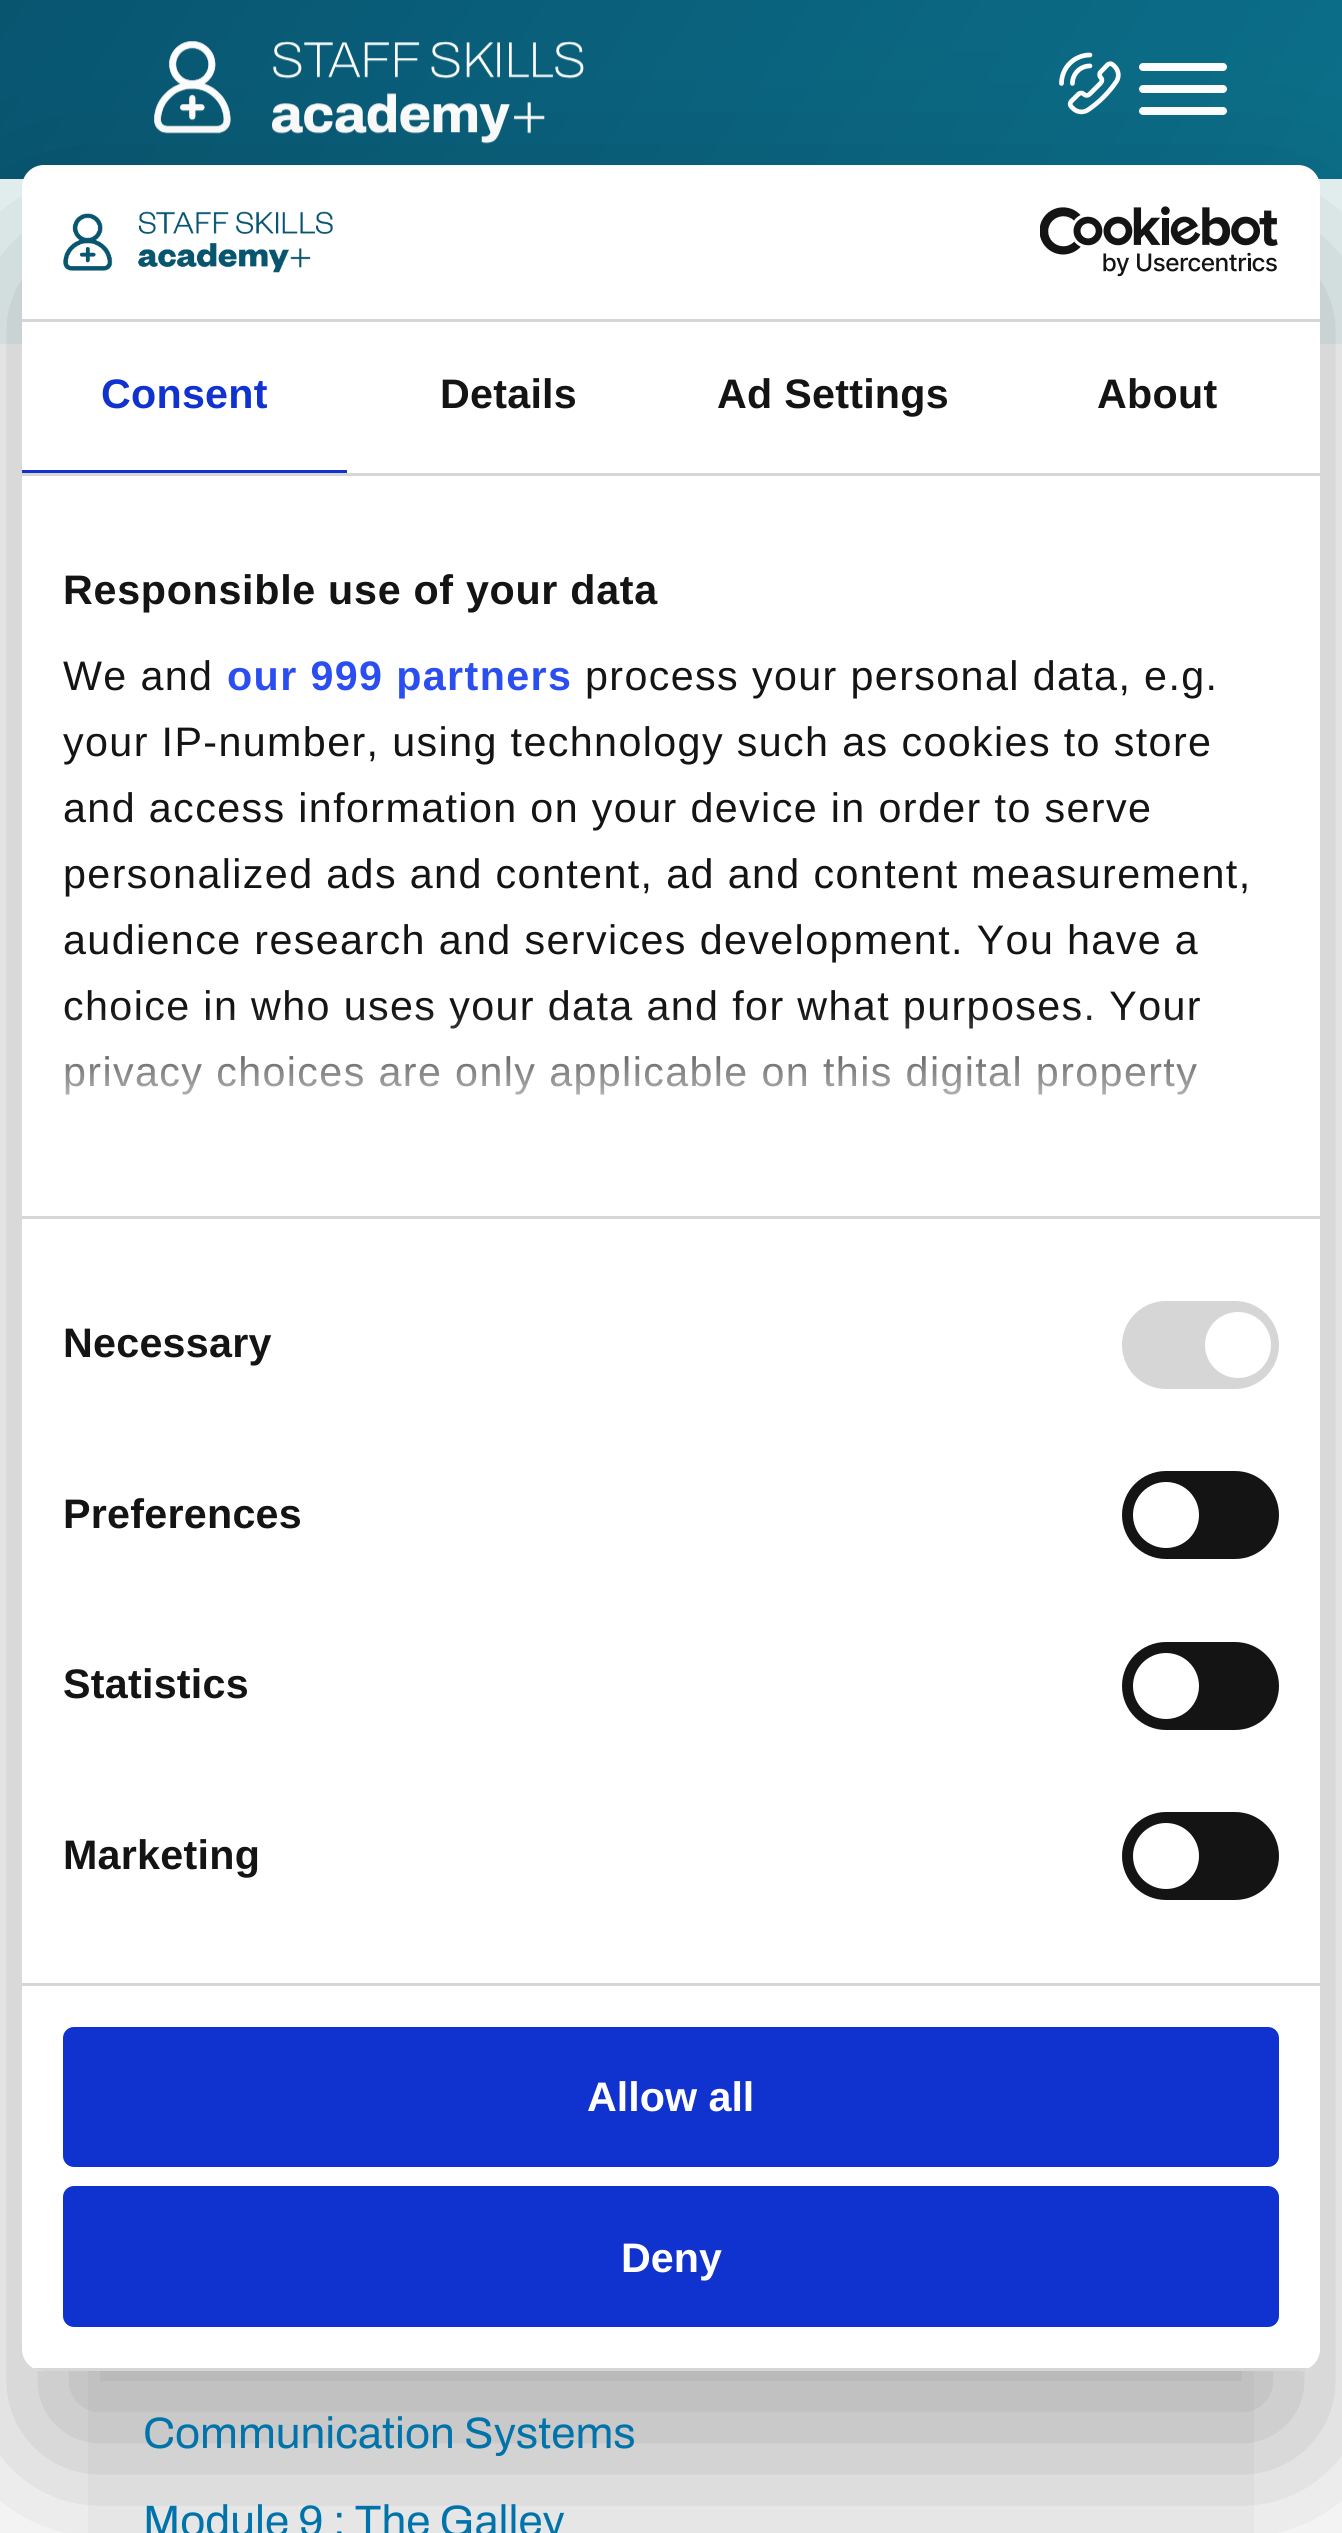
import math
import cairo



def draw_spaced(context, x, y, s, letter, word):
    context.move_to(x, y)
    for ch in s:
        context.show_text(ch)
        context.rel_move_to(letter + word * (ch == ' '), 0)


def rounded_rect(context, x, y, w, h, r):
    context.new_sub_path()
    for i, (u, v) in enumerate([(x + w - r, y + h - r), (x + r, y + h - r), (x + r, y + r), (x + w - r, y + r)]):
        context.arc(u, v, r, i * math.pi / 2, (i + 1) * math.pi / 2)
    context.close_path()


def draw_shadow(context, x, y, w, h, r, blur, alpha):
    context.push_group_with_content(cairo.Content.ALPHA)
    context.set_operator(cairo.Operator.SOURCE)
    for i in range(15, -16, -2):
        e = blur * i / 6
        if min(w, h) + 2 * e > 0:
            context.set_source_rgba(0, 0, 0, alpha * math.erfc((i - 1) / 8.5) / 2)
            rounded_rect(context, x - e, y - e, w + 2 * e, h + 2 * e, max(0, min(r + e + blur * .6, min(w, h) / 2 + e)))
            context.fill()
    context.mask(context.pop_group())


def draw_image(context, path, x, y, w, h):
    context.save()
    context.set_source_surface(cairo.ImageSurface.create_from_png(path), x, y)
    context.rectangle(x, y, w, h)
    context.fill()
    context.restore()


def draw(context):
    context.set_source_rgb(1, 1, 1)
    context.paint()
    gradient = cairo.LinearGradient(1184, 422, 158, -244)
    gradient.add_color_stop_rgba(0, 12 / 255, 111 / 255, 138 / 255, 1)
    gradient.add_color_stop_rgba(1, 8 / 255, 85 / 255, 112 / 255, 1)
    context.set_source(gradient)
    context.rectangle(0, 0, 1342, 179)
    context.fill()
    draw_image(context, "images/3.png", 154, 41, 430, 103)
    draw_image(context, "images/4.png", 1059, 52, 62, 63)
    context.set_source_rgb(1, 1, 1)
    rounded_rect(context, 1139, 63, 88, 8, 4)
    context.fill()
    rounded_rect(context, 1139, 85, 88, 8, 4)
    context.fill()
    rounded_rect(context, 1139, 107, 88, 8, 4)
    context.fill()
    context.set_source_rgb(236 / 255, 248 / 255, 248 / 255)
    context.rectangle(0, 179, 1342, 165)
    context.fill()
    context.set_source_rgb(248 / 255, 248 / 255, 248 / 255)
    context.rectangle(88, 2371, 1166, 162)
    context.fill()
    context.set_source_rgb(0, 0, 0)
    draw_shadow(context, 22, 253, 1298, 2206, 22, 93.5, 0.3)
    context.set_source_rgb(1, 1, 1)
    rounded_rect(context, 22, 165, 1298, 2206, 22)
    context.fill()
    context.set_source_rgb(214 / 255, 214 / 255, 214 / 255)
    context.rectangle(22, 319, 1298, 3)
    context.fill()
    draw_image(context, "images/1.png", 63, 211, 270, 62)
    draw_image(context, "images/2.png", 1040, 206, 238, 71)
    context.rectangle(22, 473, 1298, 3)
    context.fill()
    context.set_source_rgb(16 / 255, 50 / 255, 207 / 255)
    context.rectangle(22, 470, 325, 3)
    context.fill()
    context.set_source_rgb(214 / 255, 214 / 255, 214 / 255)
    context.rectangle(22, 1216, 1298, 3)
    context.fill()
    context.rectangle(22, 1983, 1298, 3)
    context.fill()
    rounded_rect(context, 1122, 1301, 157, 88, 44)
    context.fill()
    context.set_source_rgb(1, 1, 1)
    context.arc(1238, 1345, 33, 0, 2 * math.pi)
    context.fill()
    context.set_source_rgb(20 / 255, 20 / 255, 20 / 255)
    rounded_rect(context, 1122, 1471, 157, 88, 44)
    context.fill()
    context.set_source_rgb(1, 1, 1)
    context.arc(1166, 1515, 33, 0, 2 * math.pi)
    context.fill()
    context.set_source_rgb(20 / 255, 20 / 255, 20 / 255)
    rounded_rect(context, 1122, 1642, 157, 88, 44)
    context.fill()
    context.set_source_rgb(1, 1, 1)
    context.arc(1166, 1686, 33, 0, 2 * math.pi)
    context.fill()
    context.set_source_rgb(20 / 255, 20 / 255, 20 / 255)
    rounded_rect(context, 1122, 1812, 157, 88, 44)
    context.fill()
    context.set_source_rgb(1, 1, 1)
    context.arc(1166, 1856, 33, 0, 2 * math.pi)
    context.fill()
    context.save()
    rounded_rect(context, 22, 165, 1298, 2206, 22)
    context.clip()
    context.set_source_rgb(214 / 255, 214 / 255, 214 / 255)
    context.rectangle(33, 2368, 1276, 3)
    context.fill()
    context.restore()
    context.set_source_rgb(16 / 255, 50 / 255, 207 / 255)
    rounded_rect(context, 66, 2030, 1210, 134, 8)
    context.fill_preserve()
    context.set_line_width(6)
    context.stroke()
    rounded_rect(context, 66, 2189, 1210, 135, 8)
    context.fill_preserve()
    context.stroke()
    context.select_font_face("Liberation Sans", cairo.FontSlant.NORMAL, cairo.FontWeight.BOLD)
    context.set_font_size(41.25)
    draw_spaced(context, 101, 408, "Consent", 0.25, 0)
    context.set_source_rgb(20 / 255, 20 / 255, 20 / 255)
    draw_spaced(context, 440, 408, "Details", 0.25, 0)
    draw_spaced(context, 717, 408, "Ad Settings", 0.25, 0)
    draw_spaced(context, 1097, 408, "About", 0.25, 0)
    draw_spaced(context, 63, 604, "Responsible use of your data", 0.7, 0)
    context.select_font_face("Liberation Sans")
    draw_spaced(context, 63, 690, "We and", 1.38, 0)
    context.select_font_face("Liberation Sans", cairo.FontSlant.NORMAL, cairo.FontWeight.BOLD)
    context.set_source_rgb(42 / 255, 78 / 255, 239 / 255)
    draw_spaced(context, 227, 690, "our 999 partners", 1.38, 0)
    context.select_font_face("Liberation Sans")
    context.set_source_rgb(20 / 255, 20 / 255, 20 / 255)
    draw_spaced(context, 585, 690, "process your personal data, e.g.", 1.38, 0)
    draw_spaced(context, 63, 756, "your IP-number, using technology such as cookies to store", 1.38, 0)
    draw_spaced(context, 63, 822, "and access information on your device in order to serve", 1.38, 0)
    draw_spaced(context, 63, 888, "personalized ads and content, ad and content measurement,", 1.38, 0)
    draw_spaced(context, 63, 954, "audience research and services development. You have a", 1.38, 0)
    draw_spaced(context, 63, 1020, "choice in who uses your data and for what purposes. Your", 1.38, 0)
    draw_spaced(context, 63, 1086, "privacy choices are only applicable on this digital property", 1.38, 0)
    gradient = cairo.LinearGradient(653, 1216, 653, 1009)
    gradient.add_color_stop_rgba(0, 1, 1, 1, 1)
    gradient.add_color_stop_rgba(0.5, 1, 1, 1, 0.8)
    gradient.add_color_stop_rgba(1, 1, 1, 1, 0)
    context.set_source(gradient)
    context.rectangle(65, 1012, 1132, 83)
    context.fill()
    context.select_font_face("Liberation Sans", cairo.FontSlant.NORMAL, cairo.FontWeight.BOLD)
    context.set_source_rgb(20 / 255, 20 / 255, 20 / 255)
    draw_spaced(context, 63, 1357, "Necessary", 0.25, 0)
    draw_spaced(context, 63, 1528, "Preferences", 0.25, 0)
    draw_spaced(context, 63, 1698, "Statistics", 0.25, 0)
    draw_spaced(context, 63, 1869, "Marketing", 0.25, 0)
    context.set_source_rgb(1, 1, 1)
    context.move_to(587, 2111)
    context.show_text("Allow all")
    context.move_to(621, 2272)
    context.show_text("Deny")
    context.select_font_face("Archivo")
    context.set_font_size(44)
    context.set_source_rgb(0, 115 / 255, 170 / 255)
    context.move_to(143, 2448)
    context.show_text("Communication Systems")
    context.move_to(143, 2536)
    context.show_text("Module 9 : The Galley")


surface = cairo.ImageSurface(cairo.Format.RGB24, 1342, 2533)
context = cairo.Context(surface)
options = cairo.FontOptions()
options.set_hint_metrics(cairo.HintMetrics.OFF)
options.set_hint_style(cairo.HintStyle.NONE)
context.set_font_options(options)
context.set_miter_limit(4)
draw(context)
surface.write_to_png("out.png")
